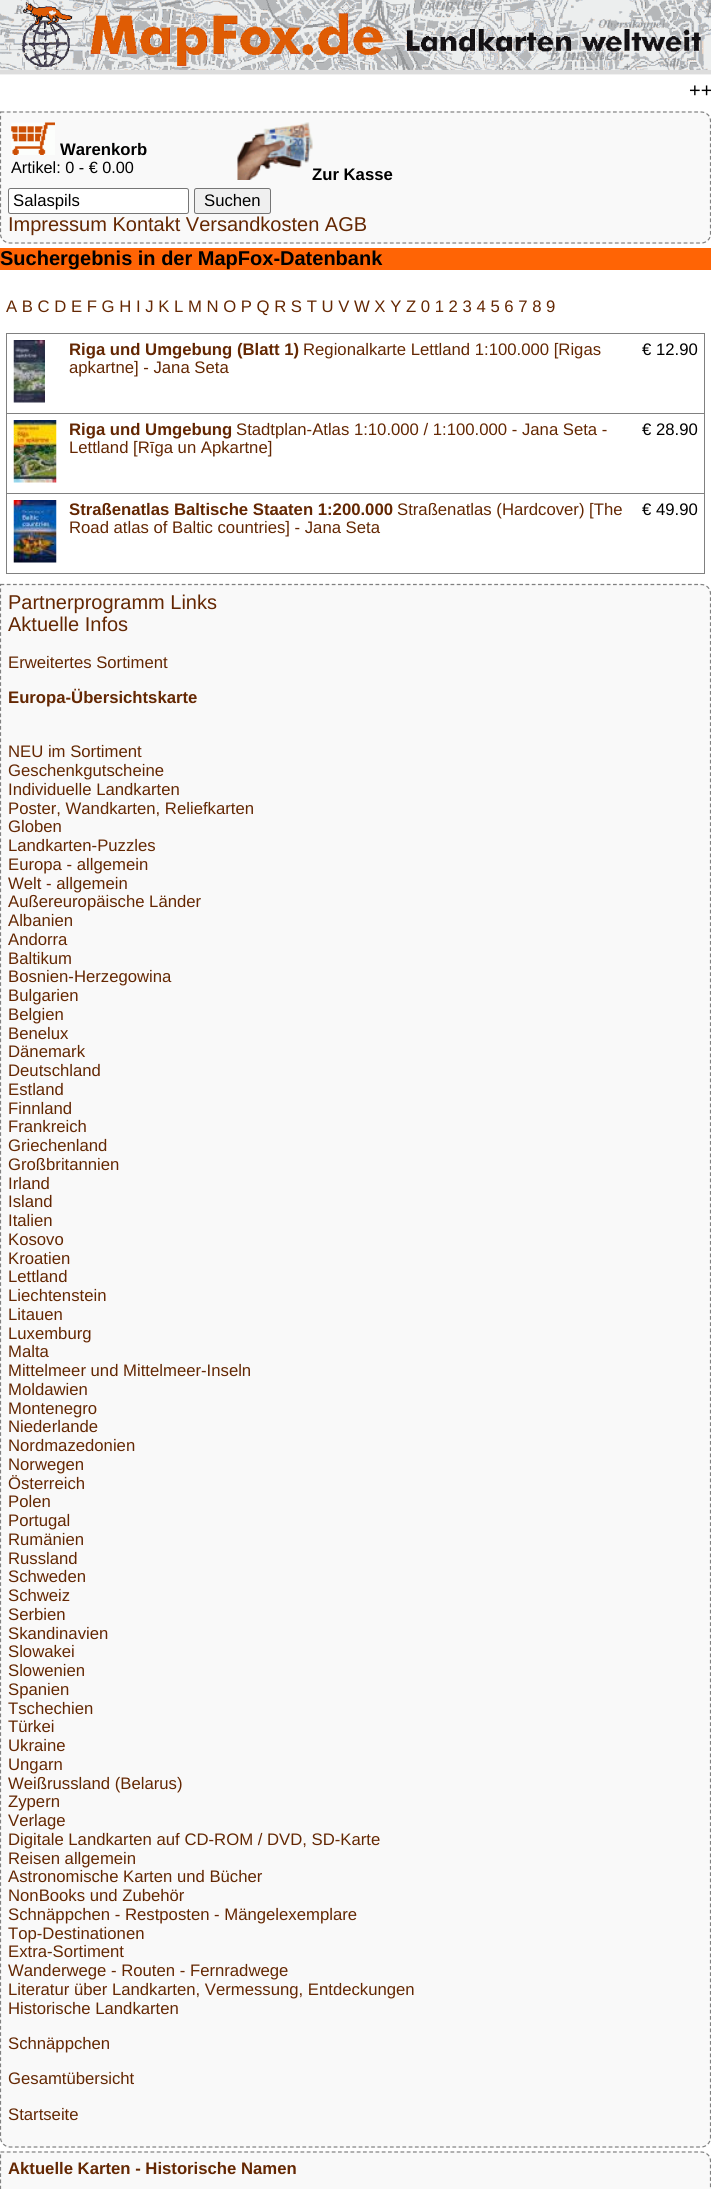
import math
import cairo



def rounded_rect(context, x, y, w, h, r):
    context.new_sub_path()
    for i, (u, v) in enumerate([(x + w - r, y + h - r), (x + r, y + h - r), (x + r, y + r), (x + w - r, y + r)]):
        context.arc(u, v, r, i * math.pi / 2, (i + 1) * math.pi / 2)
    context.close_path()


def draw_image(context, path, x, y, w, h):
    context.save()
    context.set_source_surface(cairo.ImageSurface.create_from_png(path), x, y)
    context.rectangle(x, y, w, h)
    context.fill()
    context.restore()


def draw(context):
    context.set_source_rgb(1, 1, 1)
    context.paint()
    context.set_source_rgb(241 / 255, 241 / 255, 241 / 255)
    context.rectangle(0, 74, 711, 1)
    context.fill()
    draw_image(context, "images/1.png", 0, 0, 711, 70)
    context.set_source_rgb(221 / 255, 221 / 255, 221 / 255)
    context.rectangle(0, 70, 711, 4)
    context.fill()
    context.set_source_rgb(249 / 255, 249 / 255, 249 / 255)
    context.new_path()
    context.move_to(0, 111)
    context.line_to(701, 111)
    context.curve_to(706.5, 111, 711, 115.5, 711, 121)
    context.line_to(711, 234)
    context.curve_to(711, 239.5, 706.5, 244, 701, 244)
    context.line_to(10, 244)
    context.curve_to(4.5, 244, 0, 239.5, 0, 234)
    context.close_path()
    context.fill()
    context.new_path()
    context.move_to(0.5, 112)
    context.line_to(701, 112)
    context.curve_to(706.5, 112, 710.5, 116, 710.5, 121)
    context.line_to(710.5, 234)
    context.curve_to(710.5, 239, 706.5, 243, 701, 243)
    context.line_to(10, 243)
    context.curve_to(5, 243, 0.5, 239, 0.5, 234)
    context.close_path()
    context.set_source_rgb(128 / 255, 128 / 255, 128 / 255)
    context.set_line_width(1.2)
    context.set_dash([3.75, 2.5])
    context.stroke()
    draw_image(context, "images/2.png", 11, 122, 44, 33)
    draw_image(context, "images/3.png", 237, 122, 76, 58)
    context.set_source_rgb(1, 1, 1)
    rounded_rect(context, 8.5, 188.5, 180, 25, 2)
    context.fill_preserve()
    context.set_source_rgb(118 / 255, 118 / 255, 118 / 255)
    context.set_line_width(1)
    context.set_dash([])
    context.stroke()
    context.set_source_rgb(239 / 255, 239 / 255, 239 / 255)
    rounded_rect(context, 194.5, 188.5, 76, 25, 2)
    context.fill_preserve()
    context.set_source_rgb(118 / 255, 118 / 255, 118 / 255)
    context.stroke()
    context.set_source_rgb(1, 100 / 255, 5 / 255)
    context.rectangle(0, 248, 711, 22)
    context.fill()
    context.set_source_rgb(128 / 255, 128 / 255, 128 / 255)
    context.rectangle(6, 333, 699, 1)
    context.fill()
    context.rectangle(704, 333, 1, 241)
    context.fill()
    context.rectangle(6, 573, 699, 1)
    context.fill()
    context.rectangle(6, 333, 1, 241)
    context.fill()
    draw_image(context, "images/4.png", 13, 340, 32, 63)
    draw_image(context, "images/5.png", 13, 420, 44, 63)
    context.rectangle(6, 413, 699, 1)
    context.fill()
    draw_image(context, "images/6.png", 13, 500, 44, 63)
    context.rectangle(6, 493, 699, 1)
    context.fill()
    context.set_source_rgb(249 / 255, 249 / 255, 249 / 255)
    context.new_path()
    context.move_to(0, 584)
    context.line_to(701, 584)
    context.curve_to(706.5, 584, 711, 588.5, 711, 594)
    context.line_to(711, 2138)
    context.curve_to(711, 2143.5, 706.5, 2148, 701, 2148)
    context.line_to(10, 2148)
    context.curve_to(4.5, 2148, 0, 2143.5, 0, 2138)
    context.close_path()
    context.fill()
    context.new_path()
    context.move_to(0.5, 584.5)
    context.line_to(701, 584.5)
    context.curve_to(706.5, 584.5, 710.5, 588.5, 710.5, 594)
    context.line_to(710.5, 2137.5)
    context.curve_to(710.5, 2142.5, 706.5, 2147, 701, 2147)
    context.line_to(10, 2147)
    context.curve_to(5, 2147, 0.5, 2142.5, 0.5, 2137.5)
    context.close_path()
    context.set_source_rgb(128 / 255, 128 / 255, 128 / 255)
    context.set_line_width(1.2)
    context.set_dash([3.75, 2.5])
    context.stroke()
    context.set_source_rgb(249 / 255, 249 / 255, 249 / 255)
    context.new_path()
    context.move_to(0, 2151)
    context.line_to(701, 2151)
    context.curve_to(706.5, 2151, 711, 2155.5, 711, 2161)
    context.line_to(711, 2189)
    context.curve_to(711, 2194.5, 706.5, 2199, 701, 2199)
    context.line_to(10, 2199)
    context.curve_to(4.5, 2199, 0, 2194.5, 0, 2189)
    context.close_path()
    context.fill()
    context.new_path()
    context.move_to(0.5, 2152)
    context.line_to(701, 2152)
    context.curve_to(706.5, 2152, 710.5, 2156, 710.5, 2161)
    context.line_to(710.5, 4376)
    context.curve_to(710.5, 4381.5, 706.5, 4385.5, 701, 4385.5)
    context.line_to(10, 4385.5)
    context.curve_to(5, 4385.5, 0.5, 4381.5, 0.5, 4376)
    context.close_path()
    context.set_source_rgb(128 / 255, 128 / 255, 128 / 255)
    context.stroke()
    context.select_font_face("Liberation Sans")
    context.set_font_size(20)
    context.set_source_rgb(0, 0, 0)
    context.move_to(689, 97)
    context.show_text("++")
    context.select_font_face("Liberation Sans", cairo.FontSlant.NORMAL, cairo.FontWeight.BOLD)
    context.set_font_size(16.7)
    context.move_to(60, 155)
    context.show_text("Warenkorb")
    context.select_font_face("Liberation Sans")
    context.set_font_size(16.25)
    context.move_to(11, 173)
    context.show_text("Artikel: 0 - € 0.00")
    context.select_font_face("Liberation Sans", cairo.FontSlant.NORMAL, cairo.FontWeight.BOLD)
    context.set_font_size(16.7)
    context.move_to(312, 180)
    context.show_text("Zur Kasse")
    context.select_font_face("Liberation Sans")
    context.move_to(13, 206)
    context.show_text("Salaspils")
    context.move_to(204, 206)
    context.show_text("Suchen")
    context.set_font_size(20)
    context.set_source_rgb(100 / 255, 39 / 255, 2 / 255)
    context.move_to(8, 231)
    context.show_text("Impressum Kontakt Versandkosten AGB")
    context.select_font_face("Liberation Sans", cairo.FontSlant.NORMAL, cairo.FontWeight.BOLD)
    context.set_source_rgb(0, 0, 0)
    context.move_to(0, 265)
    context.show_text("Suchergebnis in der MapFox-Datenbank")
    context.select_font_face("Liberation Sans")
    context.set_font_size(16.7)
    context.set_source_rgb(100 / 255, 39 / 255, 2 / 255)
    context.move_to(6, 312)
    context.show_text("A B C D E F G H I J K L M N O P Q R S T U V W X Y Z 0 1 2 3 4 5 6 7 8 9")
    context.select_font_face("Liberation Sans", cairo.FontSlant.NORMAL, cairo.FontWeight.BOLD)
    context.move_to(69, 355)
    context.show_text("Riga und Umgebung (Blatt 1)")
    context.select_font_face("Liberation Sans")
    context.move_to(303, 355)
    context.show_text("Regionalkarte Lettland 1:100.000 [Rigas")
    context.move_to(69, 373)
    context.show_text("apkartne] - Jana Seta")
    context.set_source_rgb(0, 0, 0)
    context.move_to(642, 355)
    context.show_text("€ 12.90")
    context.select_font_face("Liberation Sans", cairo.FontSlant.NORMAL, cairo.FontWeight.BOLD)
    context.set_source_rgb(100 / 255, 39 / 255, 2 / 255)
    context.move_to(69, 435)
    context.show_text("Riga und Umgebung")
    context.select_font_face("Liberation Sans")
    context.move_to(236, 435)
    context.show_text("Stadtplan-Atlas 1:10.000 / 1:100.000 - Jana Seta -")
    context.move_to(69, 453)
    context.show_text("Lettland [Rīga un Apkartne]")
    context.set_source_rgb(0, 0, 0)
    context.move_to(642, 435)
    context.show_text("€ 28.90")
    context.select_font_face("Liberation Sans", cairo.FontSlant.NORMAL, cairo.FontWeight.BOLD)
    context.set_source_rgb(100 / 255, 39 / 255, 2 / 255)
    context.move_to(69, 515)
    context.show_text("Straßenatlas Baltische Staaten 1:200.000")
    context.select_font_face("Liberation Sans")
    context.move_to(397, 515)
    context.show_text("Straßenatlas (Hardcover) [The")
    context.move_to(69, 533)
    context.show_text("Road atlas of Baltic countries] - Jana Seta")
    context.set_source_rgb(0, 0, 0)
    context.move_to(642, 515)
    context.show_text("€ 49.90")
    context.set_font_size(20)
    context.set_source_rgb(100 / 255, 39 / 255, 2 / 255)
    context.move_to(8, 609)
    context.show_text("Partnerprogramm Links")
    context.move_to(8, 631)
    context.show_text("Aktuelle Infos")
    context.set_font_size(16.7)
    context.move_to(8, 668)
    context.show_text("Erweitertes Sortiment")
    context.select_font_face("Liberation Sans", cairo.FontSlant.NORMAL, cairo.FontWeight.BOLD)
    context.move_to(8, 703)
    context.show_text("Europa-Übersichtskarte")
    context.select_font_face("Liberation Sans")
    context.move_to(8, 757)
    context.show_text("NEU im Sortiment")
    context.move_to(8, 776)
    context.show_text("Geschenkgutscheine")
    context.move_to(8, 795)
    context.show_text("Individuelle Landkarten")
    context.move_to(8, 814)
    context.show_text("Poster, Wandkarten, Reliefkarten")
    context.move_to(8, 832)
    context.show_text("Globen")
    context.move_to(8, 851)
    context.show_text("Landkarten-Puzzles")
    context.move_to(8, 870)
    context.show_text("Europa - allgemein")
    context.move_to(8, 889)
    context.show_text("Welt - allgemein")
    context.move_to(8, 907)
    context.show_text("Außereuropäische Länder")
    context.move_to(8, 926)
    context.show_text("Albanien")
    context.move_to(8, 945)
    context.show_text("Andorra")
    context.move_to(8, 964)
    context.show_text("Baltikum")
    context.move_to(8, 982)
    context.show_text("Bosnien-Herzegowina")
    context.move_to(8, 1001)
    context.show_text("Bulgarien")
    context.move_to(8, 1020)
    context.show_text("Belgien")
    context.move_to(8, 1039)
    context.show_text("Benelux")
    context.move_to(8, 1057)
    context.show_text("Dänemark")
    context.move_to(8, 1076)
    context.show_text("Deutschland")
    context.move_to(8, 1095)
    context.show_text("Estland")
    context.move_to(8, 1114)
    context.show_text("Finnland")
    context.move_to(8, 1132)
    context.show_text("Frankreich")
    context.move_to(8, 1151)
    context.show_text("Griechenland")
    context.move_to(8, 1170)
    context.show_text("Großbritannien")
    context.move_to(8, 1189)
    context.show_text("Irland")
    context.move_to(8, 1207)
    context.show_text("Island")
    context.move_to(8, 1226)
    context.show_text("Italien")
    context.move_to(8, 1245)
    context.show_text("Kosovo")
    context.move_to(8, 1264)
    context.show_text("Kroatien")
    context.move_to(8, 1282)
    context.show_text("Lettland")
    context.move_to(8, 1301)
    context.show_text("Liechtenstein")
    context.move_to(8, 1320)
    context.show_text("Litauen")
    context.move_to(8, 1339)
    context.show_text("Luxemburg")
    context.move_to(8, 1357)
    context.show_text("Malta")
    context.move_to(8, 1376)
    context.show_text("Mittelmeer und Mittelmeer-Inseln")
    context.move_to(8, 1395)
    context.show_text("Moldawien")
    context.move_to(8, 1414)
    context.show_text("Montenegro")
    context.move_to(8, 1432)
    context.show_text("Niederlande")
    context.move_to(8, 1451)
    context.show_text("Nordmazedonien")
    context.move_to(8, 1470)
    context.show_text("Norwegen")
    context.move_to(8, 1489)
    context.show_text("Österreich")
    context.move_to(8, 1507)
    context.show_text("Polen")
    context.move_to(8, 1526)
    context.show_text("Portugal")
    context.move_to(8, 1545)
    context.show_text("Rumänien")
    context.move_to(8, 1564)
    context.show_text("Russland")
    context.move_to(8, 1582)
    context.show_text("Schweden")
    context.move_to(8, 1601)
    context.show_text("Schweiz")
    context.move_to(8, 1620)
    context.show_text("Serbien")
    context.move_to(8, 1639)
    context.show_text("Skandinavien")
    context.move_to(8, 1657)
    context.show_text("Slowakei")
    context.move_to(8, 1676)
    context.show_text("Slowenien")
    context.move_to(8, 1695)
    context.show_text("Spanien")
    context.move_to(8, 1714)
    context.show_text("Tschechien")
    context.move_to(8, 1732)
    context.show_text("Türkei")
    context.move_to(8, 1751)
    context.show_text("Ukraine")
    context.move_to(8, 1770)
    context.show_text("Ungarn")
    context.move_to(8, 1789)
    context.show_text("Weißrussland (Belarus)")
    context.move_to(8, 1807)
    context.show_text("Zypern")
    context.move_to(8, 1826)
    context.show_text("Verlage")
    context.move_to(8, 1845)
    context.show_text("Digitale Landkarten auf CD-ROM / DVD, SD-Karte")
    context.move_to(8, 1864)
    context.show_text("Reisen allgemein")
    context.move_to(8, 1882)
    context.show_text("Astronomische Karten und Bücher")
    context.move_to(8, 1901)
    context.show_text("NonBooks und Zubehör")
    context.move_to(8, 1920)
    context.show_text("Schnäppchen - Restposten - Mängelexemplare")
    context.move_to(8, 1939)
    context.show_text("Top-Destinationen")
    context.move_to(8, 1957)
    context.show_text("Extra-Sortiment")
    context.move_to(8, 1976)
    context.show_text("Wanderwege - Routen - Fernradwege")
    context.move_to(8, 1995)
    context.show_text("Literatur über Landkarten, Vermessung, Entdeckungen")
    context.move_to(8, 2014)
    context.show_text("Historische Landkarten")
    context.move_to(8, 2049)
    context.show_text("Schnäppchen")
    context.move_to(8, 2084)
    context.show_text("Gesamtübersicht")
    context.move_to(8, 2120)
    context.show_text("Startseite")
    context.select_font_face("Liberation Sans", cairo.FontSlant.NORMAL, cairo.FontWeight.BOLD)
    context.move_to(8, 2174)
    context.show_text("Aktuelle Karten - Historische Namen")


surface = cairo.ImageSurface(cairo.Format.RGB24, 711, 2189)
context = cairo.Context(surface)
options = cairo.FontOptions()
options.set_hint_metrics(cairo.HintMetrics.OFF)
options.set_hint_style(cairo.HintStyle.NONE)
context.set_font_options(options)
context.set_miter_limit(4)
draw(context)
surface.write_to_png("out.png")
